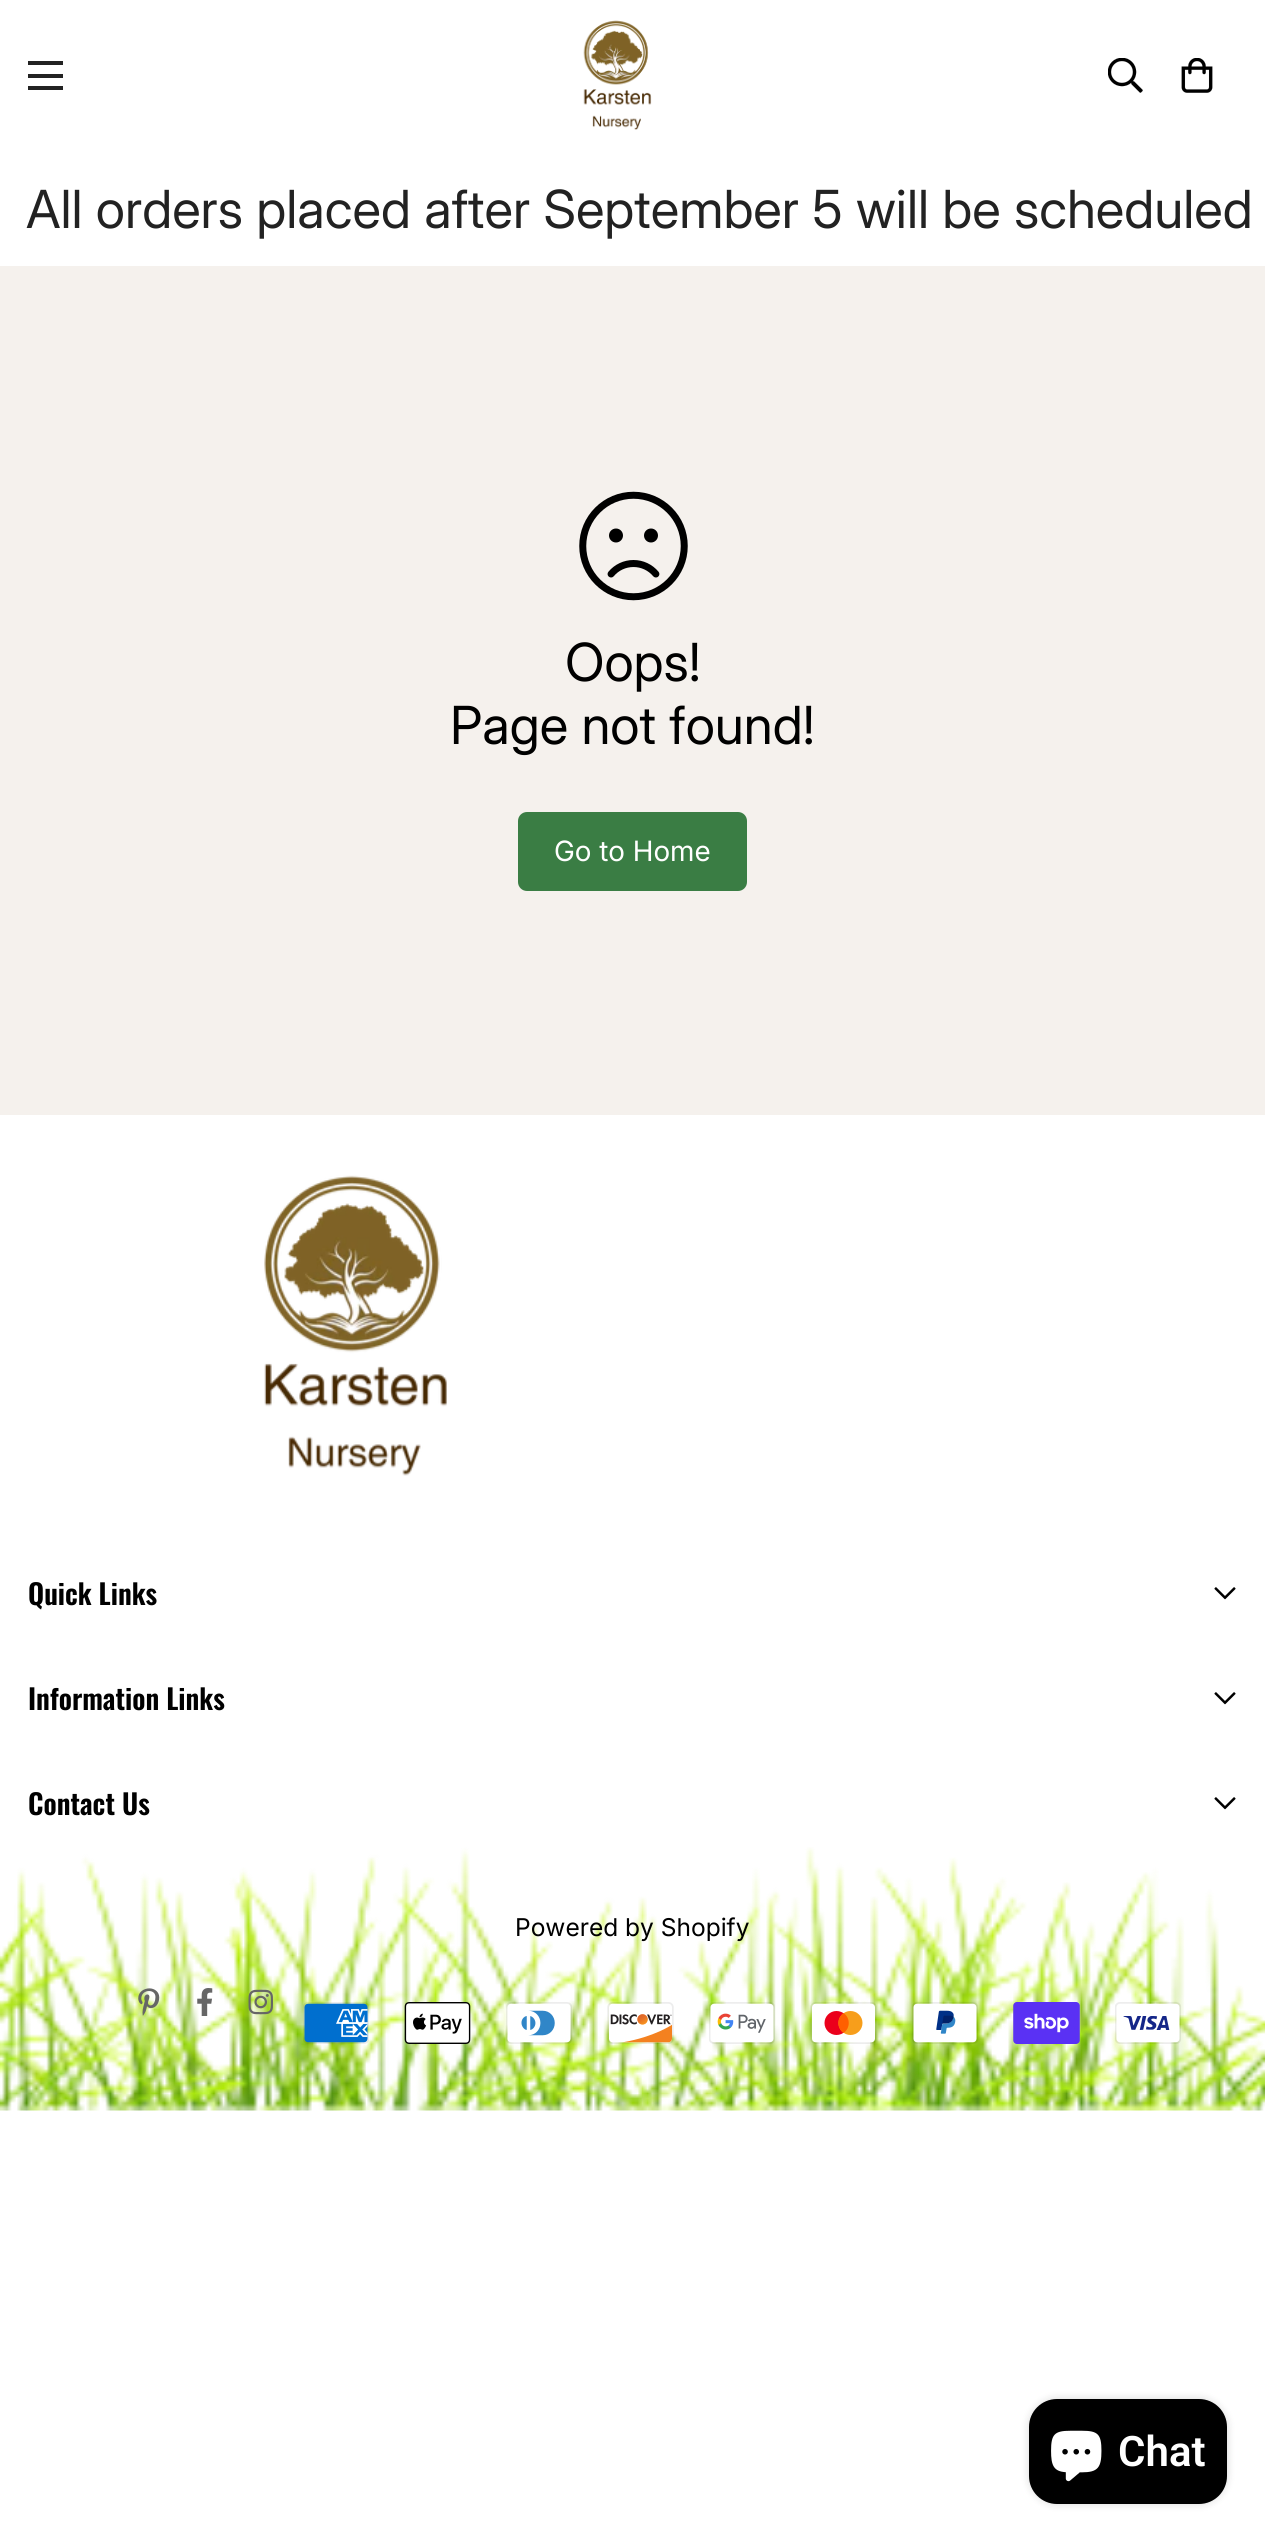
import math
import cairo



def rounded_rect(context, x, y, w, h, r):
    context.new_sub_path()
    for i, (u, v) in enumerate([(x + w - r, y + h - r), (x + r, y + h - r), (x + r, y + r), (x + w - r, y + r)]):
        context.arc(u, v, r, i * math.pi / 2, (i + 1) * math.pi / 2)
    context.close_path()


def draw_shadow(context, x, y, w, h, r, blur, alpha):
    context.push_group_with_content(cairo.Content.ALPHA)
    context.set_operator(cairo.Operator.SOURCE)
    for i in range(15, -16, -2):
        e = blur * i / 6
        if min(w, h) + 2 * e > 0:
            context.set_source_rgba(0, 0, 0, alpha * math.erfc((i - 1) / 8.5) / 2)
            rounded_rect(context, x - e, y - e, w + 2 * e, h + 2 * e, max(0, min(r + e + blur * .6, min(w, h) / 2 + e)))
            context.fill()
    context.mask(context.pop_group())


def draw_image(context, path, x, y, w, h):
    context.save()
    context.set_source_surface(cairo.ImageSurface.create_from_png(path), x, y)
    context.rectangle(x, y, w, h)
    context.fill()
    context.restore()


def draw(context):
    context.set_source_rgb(1, 1, 1)
    context.paint()
    context.set_source_rgb(34 / 255, 34 / 255, 34 / 255)
    context.rectangle(28, 74, 35, 4)
    context.fill()
    context.rectangle(28, 61, 35, 4)
    context.fill()
    context.rectangle(28, 86, 35, 4)
    context.fill()
    draw_image(context, "images/1.png", 583, 20, 69, 110)
    draw_image(context, "images/2.png", 1108, 58, 35, 35)
    draw_image(context, "images/3.png", 1181, 58, 32, 35)
    context.set_source_rgb(245 / 255, 241 / 255, 237 / 255)
    context.rectangle(0, 266, 1265, 849)
    context.fill()
    draw_image(context, "images/4.png", 579, 491, 109, 110)
    context.set_source_rgb(58 / 255, 125 / 255, 68 / 255)
    rounded_rect(context, 519, 813, 227, 77, 8)
    context.fill_preserve()
    context.stroke()
    draw_image(context, "images/5.png", 0, 1847, 1265, 264)
    draw_image(context, "images/6.png", 264, 1175, 183, 301)
    draw_image(context, "images/7.png", 1214, 1587, 22, 13)
    draw_image(context, "images/7.png", 1214, 1692, 22, 13)
    draw_image(context, "images/7.png", 1214, 1797, 22, 13)
    draw_image(context, "images/8.png", 138, 1988, 22, 28)
    draw_image(context, "images/9.png", 197, 1988, 16, 28)
    draw_image(context, "images/10.png", 248, 1989, 25, 26)
    draw_image(context, "images/11.png", 303, 2002, 66, 42)
    draw_image(context, "images/12.png", 404, 2002, 67, 42)
    draw_image(context, "images/13.png", 506, 2002, 66, 42)
    draw_image(context, "images/14.png", 607, 2002, 67, 42)
    draw_image(context, "images/15.png", 709, 2002, 66, 42)
    draw_image(context, "images/16.png", 810, 2002, 67, 42)
    draw_image(context, "images/17.png", 912, 2002, 66, 42)
    draw_image(context, "images/18.png", 1013, 2002, 67, 42)
    draw_image(context, "images/19.png", 1115, 2002, 66, 42)
    context.set_source_rgb(0, 0, 0)
    draw_shadow(context, 1029, 2399, 198, 105, 28, 4.5, 0.15)
    context.set_source_rgb(0, 0, 0)
    rounded_rect(context, 1029, 2399, 198, 105, 28)
    context.fill()
    draw_image(context, "images/20.png", 1051, 2430, 51, 52)
    context.select_font_face("Inter")
    context.set_font_size(52.5)
    context.set_source_rgb(34 / 255, 34 / 255, 34 / 255)
    context.move_to(26, 228)
    context.show_text("All orders placed after September 5 will be scheduled")
    context.set_source_rgb(0, 0, 0)
    context.move_to(565, 681)
    context.show_text("Oops!")
    context.move_to(450, 744)
    context.show_text("Page not found!")
    context.select_font_face("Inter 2")
    context.set_font_size(28)
    context.set_source_rgb(1, 1, 1)
    context.move_to(554, 861)
    context.show_text("Go to Home")
    context.select_font_face("Oswald SemiBold")
    context.set_source_rgb(0, 0, 0)
    context.move_to(28, 1605)
    context.show_text("Quick Links")
    context.move_to(28, 1710)
    context.show_text("Information Links")
    context.move_to(28, 1815)
    context.show_text("Contact Us")
    context.select_font_face("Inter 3")
    context.set_font_size(24.5)
    context.move_to(515, 1936)
    context.show_text("Powered by Shopify")
    context.select_font_face("Roboto SemiBold")
    context.set_font_size(42)
    context.set_source_rgb(1, 1, 1)
    context.move_to(1118, 2466)
    context.show_text("Chat")


surface = cairo.ImageSurface(cairo.Format.RGB24, 1265, 2541)
context = cairo.Context(surface)
options = cairo.FontOptions()
options.set_hint_metrics(cairo.HintMetrics.OFF)
options.set_hint_style(cairo.HintStyle.NONE)
context.set_font_options(options)
context.set_miter_limit(4)
draw(context)
surface.write_to_png("out.png")
